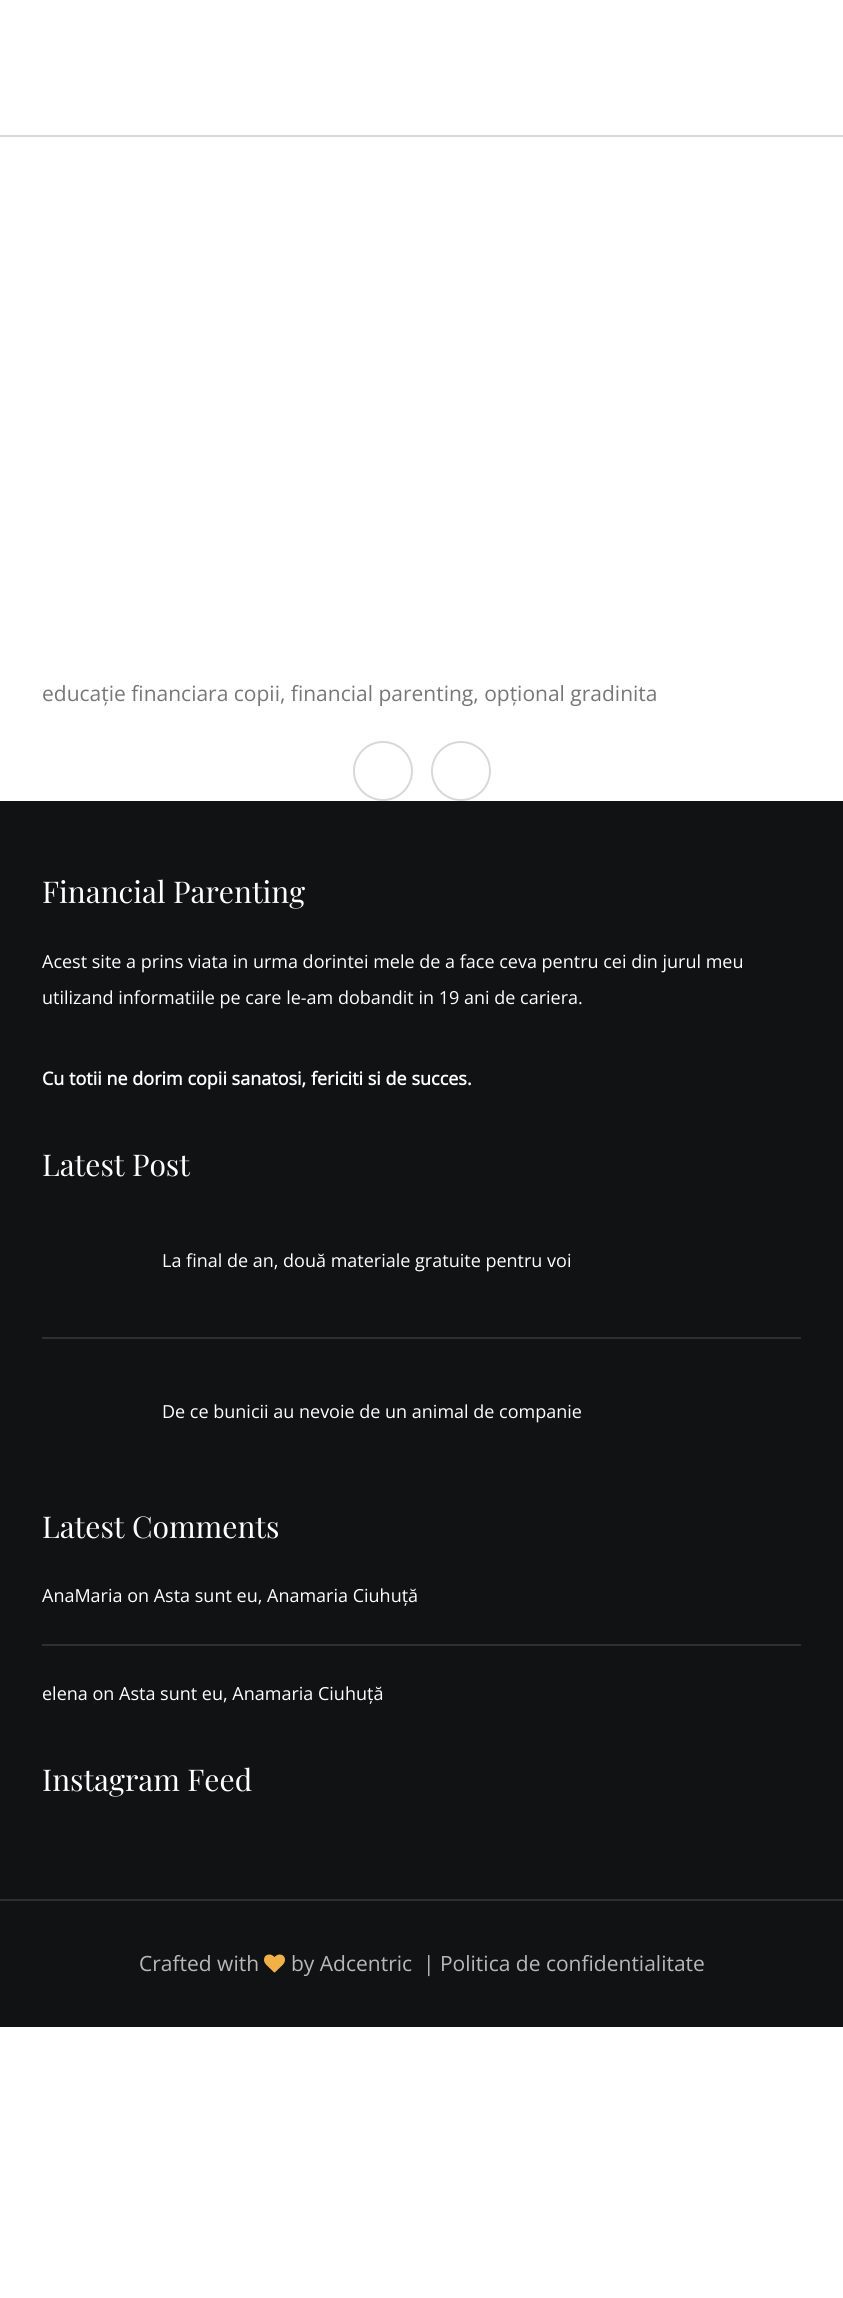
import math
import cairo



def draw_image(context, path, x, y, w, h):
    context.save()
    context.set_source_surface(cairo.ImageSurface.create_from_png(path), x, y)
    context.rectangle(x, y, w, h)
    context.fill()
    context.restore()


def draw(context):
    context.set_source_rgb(1, 1, 1)
    context.paint()
    context.set_source_rgb(216 / 255, 216 / 255, 216 / 255)
    context.rectangle(0, 135, 843, 2)
    context.fill()
    context.arc(383, 771, 29, 0, 2 * math.pi)
    context.stroke()
    context.arc(461, 771, 29, 0, 2 * math.pi)
    context.stroke()
    context.set_source_rgb(17 / 255, 18 / 255, 19 / 255)
    context.rectangle(0, 801, 843, 1098)
    context.fill()
    context.set_source_rgb(46 / 255, 47 / 255, 48 / 255)
    context.rectangle(0, 1899, 843, 2)
    context.fill()
    context.rectangle(42, 1337, 759, 2)
    context.fill()
    context.rectangle(42, 1644, 759, 2)
    context.fill()
    context.set_source_rgb(17 / 255, 18 / 255, 19 / 255)
    context.rectangle(0, 1901, 843, 126)
    context.fill()
    draw_image(context, "images/1.png", 264, 1954, 21, 19)
    context.select_font_face("Open Sans")
    context.set_font_size(21)
    context.set_source_rgb(119 / 255, 119 / 255, 119 / 255)
    context.move_to(42, 701)
    context.show_text("educație financiara copii, financial parenting, opțional gradinita")
    context.select_font_face("Playfair Display")
    context.set_font_size(30)
    context.set_source_rgb(1, 1, 1)
    context.move_to(42, 903)
    context.show_text("Financial Parenting")
    context.select_font_face("Open Sans")
    context.set_font_size(18)
    context.move_to(42, 968)
    context.show_text("Acest site a prins viata in urma dorintei mele de a face ceva pentru cei din jurul meu")
    context.move_to(42, 1004)
    context.show_text("utilizand informatiile pe care le-am dobandit in 19 ani de cariera.")
    context.select_font_face("Open Sans", cairo.FontSlant.NORMAL, cairo.FontWeight.BOLD)
    context.move_to(42, 1085)
    context.show_text("Cu totii ne dorim copii sanatosi, fericiti si de succes.")
    context.select_font_face("Playfair Display")
    context.set_font_size(30)
    context.move_to(42, 1176)
    context.show_text("Latest Post")
    context.select_font_face("Open Sans")
    context.set_font_size(18)
    context.move_to(162, 1267)
    context.show_text("La final de an, două materiale gratuite pentru voi")
    context.move_to(162, 1418)
    context.show_text("De ce bunicii au nevoie de un animal de companie")
    context.select_font_face("Playfair Display")
    context.set_font_size(30)
    context.move_to(42, 1538)
    context.show_text("Latest Comments")
    context.select_font_face("Open Sans")
    context.set_font_size(18)
    context.move_to(42, 1602)
    context.show_text("AnaMaria on Asta sunt eu, Anamaria Ciuhuță")
    context.move_to(42, 1700)
    context.show_text("elena on Asta sunt eu, Anamaria Ciuhuță")
    context.select_font_face("Playfair Display")
    context.set_font_size(30)
    context.move_to(42, 1791)
    context.show_text("Instagram Feed")
    context.select_font_face("Open Sans")
    context.set_font_size(21)
    context.set_source_rgb(184 / 255, 184 / 255, 185 / 255)
    context.move_to(139, 1971)
    context.show_text("Crafted with")
    context.move_to(291, 1971)
    context.show_text("by Adcentric")
    context.move_to(423, 1971)
    context.show_text("| Politica de confidentialitate")


surface = cairo.ImageSurface(cairo.Format.RGB24, 843, 2298)
context = cairo.Context(surface)
options = cairo.FontOptions()
options.set_hint_metrics(cairo.HintMetrics.OFF)
options.set_hint_style(cairo.HintStyle.NONE)
context.set_font_options(options)
context.set_miter_limit(4)
draw(context)
surface.write_to_png("out.png")
